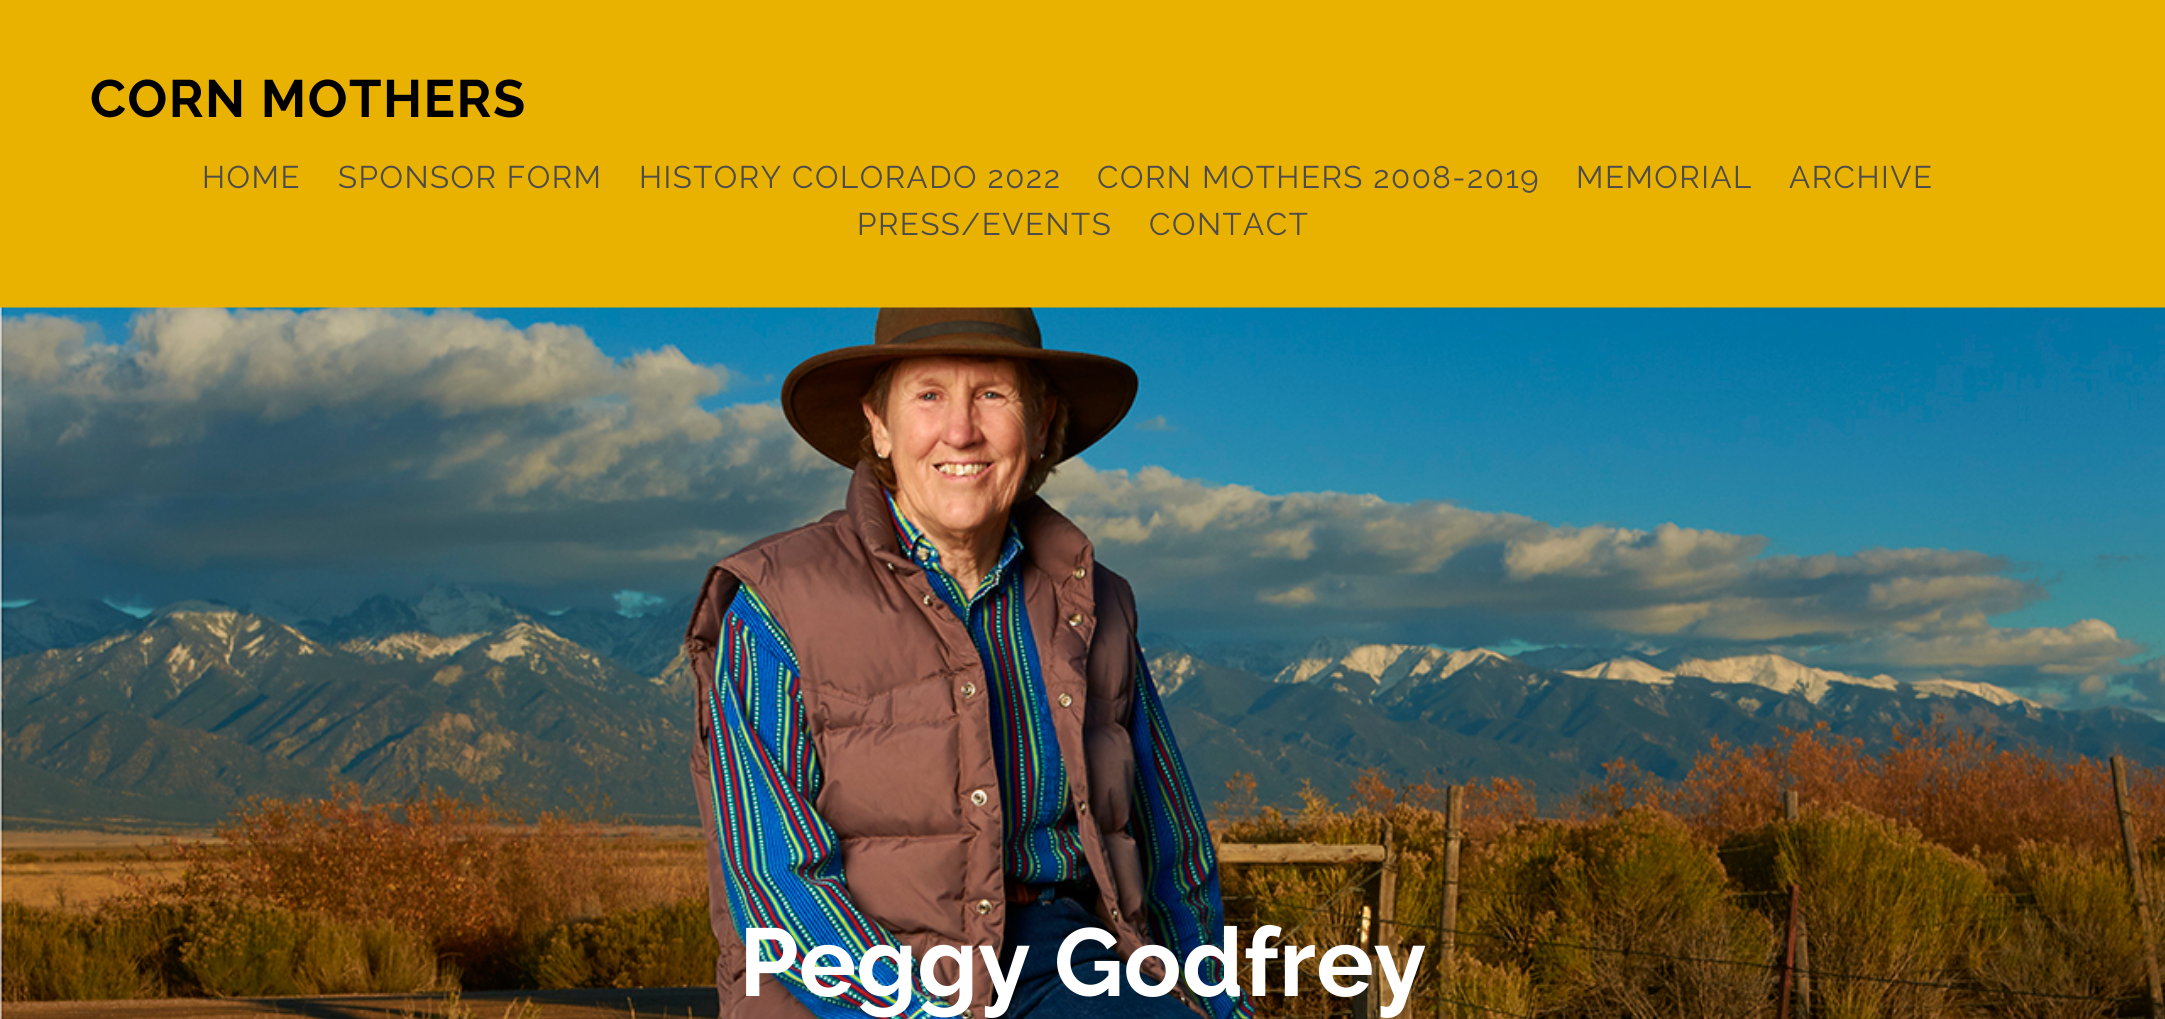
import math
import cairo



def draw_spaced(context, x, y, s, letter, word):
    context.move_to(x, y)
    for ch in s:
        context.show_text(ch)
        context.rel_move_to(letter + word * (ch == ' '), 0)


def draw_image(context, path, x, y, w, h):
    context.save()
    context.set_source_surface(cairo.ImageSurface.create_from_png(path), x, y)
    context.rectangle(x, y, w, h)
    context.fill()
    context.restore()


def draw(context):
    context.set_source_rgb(233 / 255, 178 / 255, 0)
    context.paint()
    draw_image(context, "images/1.png", 0, 307, 2165, 712)
    context.select_font_face("Raleway", cairo.FontSlant.NORMAL, cairo.FontWeight.BOLD)
    context.set_font_size(52.5)
    context.set_source_rgb(0, 0, 0)
    draw_spaced(context, 90, 117, "CORN MOTHERS", 1.5, 0)
    context.select_font_face("Raleway")
    context.set_font_size(31.25)
    context.set_source_rgb(77 / 255, 75 / 255, 75 / 255)
    draw_spaced(context, 202, 188, "HOME", 1.5, 0)
    draw_spaced(context, 338, 188, "SPONSOR FORM", 1.5, 0)
    draw_spaced(context, 639, 188, "HISTORY COLORADO 2022", 1.5, 0)
    draw_spaced(context, 1097, 188, "CORN MOTHERS 2008-2019", 1.5, 0)
    draw_spaced(context, 1576, 188, "MEMORIAL", 1.5, 0)
    draw_spaced(context, 1789, 188, "ARCHIVE", 1.5, 0)
    draw_spaced(context, 857, 235, "PRESS/EVENTS", 1.5, 0)
    draw_spaced(context, 1149, 235, "CONTACT", 1.5, 0)
    context.select_font_face("Raleway", cairo.FontSlant.NORMAL, cairo.FontWeight.BOLD)
    context.set_font_size(96)
    context.set_source_rgb(1, 1, 1)
    context.move_to(739, 996)
    context.show_text("Peggy Godfrey")


surface = cairo.ImageSurface(cairo.Format.RGB24, 2165, 1019)
context = cairo.Context(surface)
options = cairo.FontOptions()
options.set_hint_metrics(cairo.HintMetrics.OFF)
options.set_hint_style(cairo.HintStyle.NONE)
context.set_font_options(options)
context.set_miter_limit(4)
draw(context)
surface.write_to_png("out.png")
